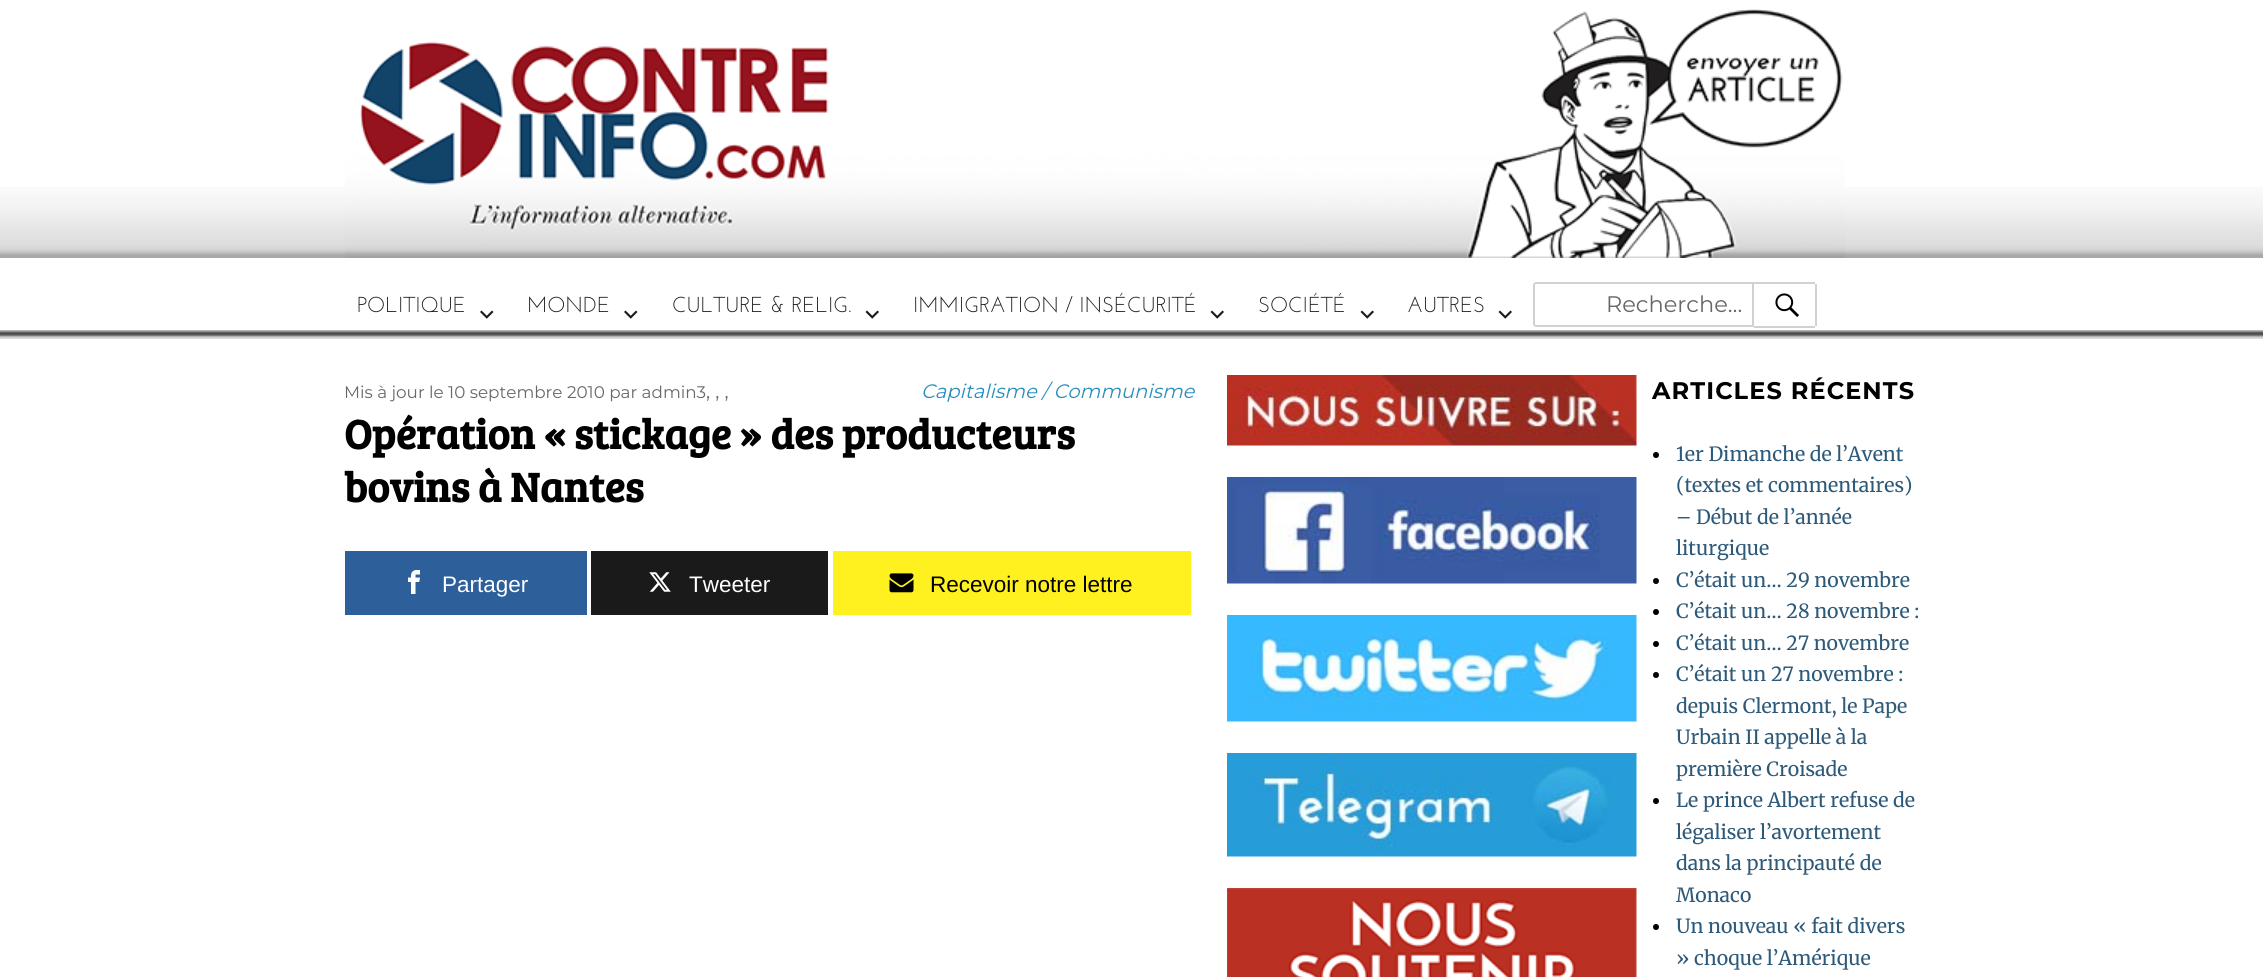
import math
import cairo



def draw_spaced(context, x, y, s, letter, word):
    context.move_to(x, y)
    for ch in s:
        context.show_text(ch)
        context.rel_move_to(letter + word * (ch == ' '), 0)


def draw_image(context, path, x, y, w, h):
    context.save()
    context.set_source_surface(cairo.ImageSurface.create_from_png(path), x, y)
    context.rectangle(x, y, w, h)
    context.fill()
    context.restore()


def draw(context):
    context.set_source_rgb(1, 1, 1)
    context.paint()
    draw_image(context, "images/1.png", 0, 187, 2263, 71)
    draw_image(context, "images/2.png", 345, 9, 1500, 249)
    draw_image(context, "images/3.png", 0, 330, 2263, 9)
    draw_image(context, "images/4.png", 480, 310, 14, 9)
    draw_image(context, "images/4.png", 624, 310, 14, 9)
    draw_image(context, "images/5.png", 865, 310, 14, 9)
    draw_image(context, "images/5.png", 1210, 310, 14, 9)
    draw_image(context, "images/5.png", 1360, 310, 14, 9)
    draw_image(context, "images/5.png", 1498, 310, 14, 9)
    context.new_path()
    context.move_to(1536, 283)
    context.line_to(1753, 283)
    context.line_to(1753, 326)
    context.line_to(1536, 326)
    context.curve_to(1535, 326, 1534, 325, 1534, 324)
    context.line_to(1534, 285)
    context.curve_to(1534, 284, 1535, 283, 1536, 283)
    context.close_path()
    context.set_source_rgb(209 / 255, 209 / 255, 209 / 255)
    context.stroke()
    context.rectangle(1754, 282, 61, 2)
    context.fill()
    context.rectangle(1815, 284, 2, 42)
    context.fill()
    context.rectangle(1754, 326, 61, 2)
    context.fill()
    draw_image(context, "images/6.png", 1775, 293, 24, 24)
    context.set_source_rgb(45 / 255, 95 / 255, 154 / 255)
    context.rectangle(345, 551, 242, 64)
    context.fill()
    draw_image(context, "images/7.png", 408, 570, 12, 24)
    context.set_source_rgb(26 / 255, 26 / 255, 26 / 255)
    context.rectangle(591, 551, 237, 64)
    context.fill()
    draw_image(context, "images/8.png", 649, 572, 22, 20)
    context.set_source_rgb(1, 241 / 255, 32 / 255)
    context.rectangle(833, 551, 358, 64)
    context.fill()
    draw_image(context, "images/9.png", 889, 573, 25, 20)
    draw_image(context, "images/10.png", 1227, 375, 410, 71)
    draw_image(context, "images/11.png", 1227, 477, 410, 107)
    draw_image(context, "images/12.png", 1227, 615, 410, 107)
    draw_image(context, "images/13.png", 1227, 753, 410, 104)
    draw_image(context, "images/14.png", 1227, 888, 410, 89)
    context.set_source_rgb(0, 0, 0)
    context.arc(1656, 455, 3, 0, 2 * math.pi)
    context.fill()
    context.arc(1656, 581, 3, 0, 2 * math.pi)
    context.fill()
    context.arc(1656, 612, 3, 0, 2 * math.pi)
    context.fill()
    context.arc(1656, 644, 3, 0, 2 * math.pi)
    context.fill()
    context.arc(1656, 675, 3, 0, 2 * math.pi)
    context.fill()
    context.arc(1656, 801, 3, 0, 2 * math.pi)
    context.fill()
    context.arc(1656, 927, 3, 0, 2 * math.pi)
    context.fill()
    context.select_font_face("Josefin Sans")
    context.set_font_size(21.6)
    context.set_source_rgb(26 / 255, 26 / 255, 26 / 255)
    context.move_to(357, 312)
    context.show_text("POLITIQUE")
    context.move_to(527, 312)
    context.show_text("MONDE")
    context.move_to(672, 312)
    context.show_text("CULTURE & RELIG.")
    context.move_to(913, 312)
    context.show_text("IMMIGRATION / INSÉCURITÉ")
    context.move_to(1258, 312)
    context.show_text("SOCIÉTÉ")
    context.move_to(1407, 312)
    context.show_text("AUTRES")
    context.select_font_face("Montserrat")
    context.set_font_size(22.5)
    context.set_source_rgb(104 / 255, 104 / 255, 104 / 255)
    context.move_to(1606, 312)
    context.show_text("Recherche…")
    context.set_font_size(16.8)
    context.move_to(344, 398)
    context.show_text("Mis à jour le 10 septembre 2010 par admin3")
    context.set_font_size(19.5)
    context.move_to(706, 398)
    context.show_text(", , ,")
    context.select_font_face("Montserrat", cairo.FontSlant.ITALIC)
    context.set_source_rgb(41 / 255, 142 / 255, 189 / 255)
    context.move_to(921, 398)
    context.show_text("Capitalisme / Communisme")
    context.select_font_face("Bree Serif", cairo.FontSlant.NORMAL, cairo.FontWeight.BOLD)
    context.set_font_size(42)
    context.set_source_rgb(0, 0, 0)
    context.move_to(344, 449)
    context.show_text("Opération « stickage » des producteurs")
    context.move_to(344, 502)
    context.show_text("bovins à Nantes")
    context.select_font_face("Liberation Sans")
    context.set_font_size(22.5)
    context.set_source_rgb(1, 1, 1)
    context.move_to(442, 592)
    context.show_text("Partager")
    context.move_to(689, 592)
    context.show_text("Tweeter")
    context.set_source_rgb(0, 0, 0)
    context.move_to(930, 592)
    context.show_text("Recevoir notre lettre")
    context.select_font_face("Montserrat", cairo.FontSlant.NORMAL, cairo.FontWeight.BOLD)
    context.set_font_size(24)
    draw_spaced(context, 1652, 399, "ARTICLES RÉCENTS", 1.1, 0)
    context.select_font_face("Merriweather")
    context.set_font_size(19.5)
    context.set_source_rgb(46 / 255, 90 / 255, 122 / 255)
    context.move_to(1676, 461)
    context.show_text("1er Dimanche de l’Avent")
    context.move_to(1676, 492)
    context.show_text("(textes et commentaires)")
    context.move_to(1676, 524)
    context.show_text("– Début de l’année")
    context.move_to(1676, 555)
    context.show_text("liturgique")
    context.move_to(1676, 587)
    context.show_text("C’était un… 29 novembre")
    context.move_to(1676, 618)
    context.show_text("C’était un… 28 novembre :")
    context.move_to(1676, 650)
    context.show_text("C’était un… 27 novembre")
    context.move_to(1676, 681)
    context.show_text("C’était un 27 novembre :")
    context.move_to(1676, 713)
    context.show_text("depuis Clermont, le Pape")
    context.move_to(1676, 744)
    context.show_text("Urbain II appelle à la")
    context.move_to(1676, 776)
    context.show_text("première Croisade")
    context.move_to(1676, 807)
    context.show_text("Le prince Albert refuse de")
    context.move_to(1676, 839)
    context.show_text("légaliser l’avortement")
    context.move_to(1676, 870)
    context.show_text("dans la principauté de")
    context.move_to(1676, 902)
    context.show_text("Monaco")
    context.move_to(1676, 933)
    context.show_text("Un nouveau « fait divers")
    context.move_to(1676, 965)
    context.show_text("» choque l’Amérique")


surface = cairo.ImageSurface(cairo.Format.RGB24, 2263, 977)
context = cairo.Context(surface)
options = cairo.FontOptions()
options.set_hint_metrics(cairo.HintMetrics.OFF)
options.set_hint_style(cairo.HintStyle.NONE)
context.set_font_options(options)
context.set_miter_limit(4)
draw(context)
surface.write_to_png("out.png")
